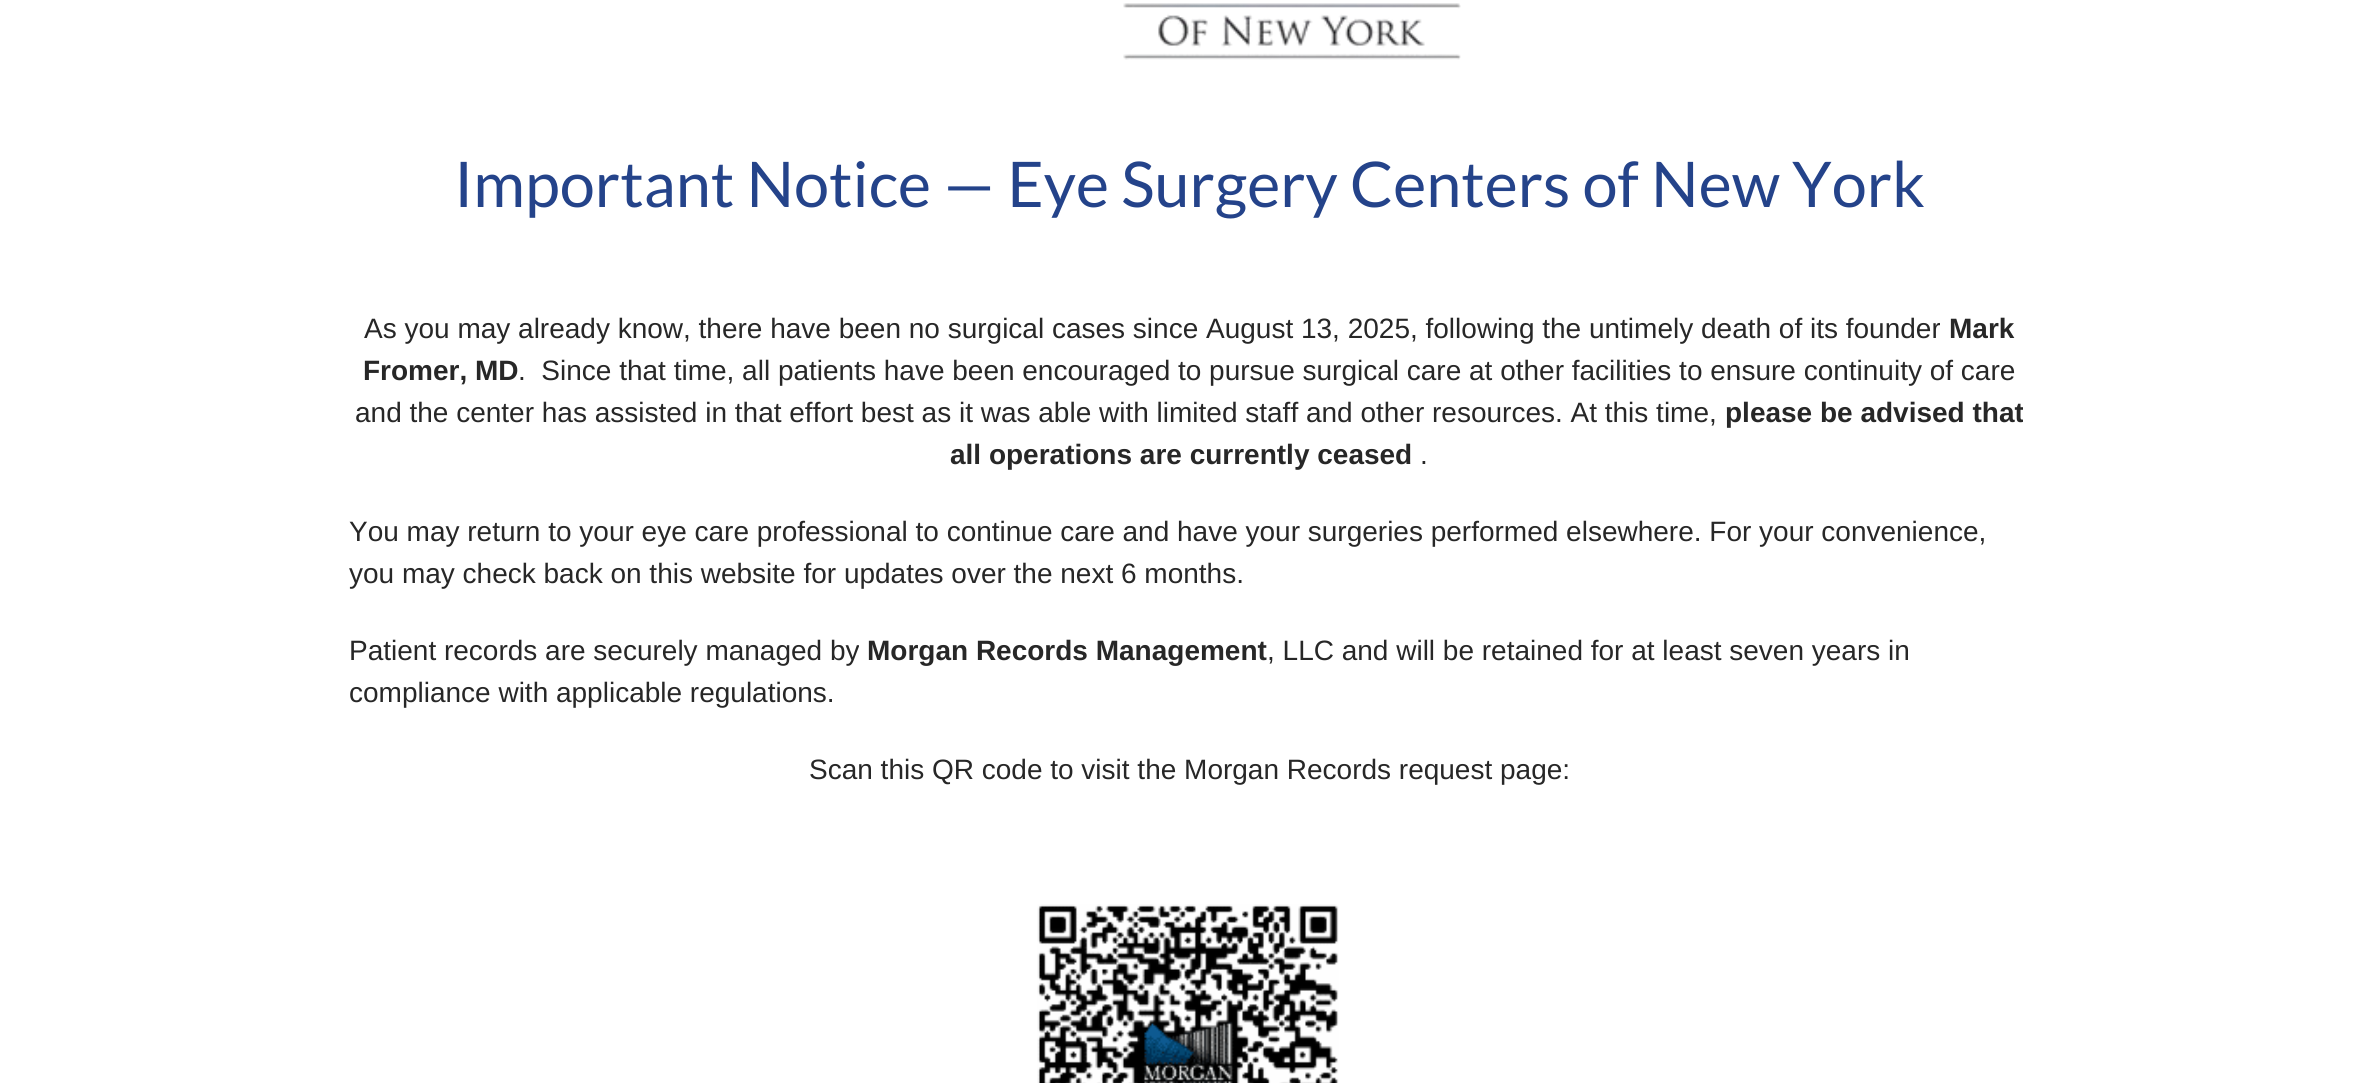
import math
import cairo



def draw_image(context, path, x, y, w, h):
    context.save()
    context.set_source_surface(cairo.ImageSurface.create_from_png(path), x, y)
    context.rectangle(x, y, w, h)
    context.fill()
    context.restore()


def draw(context):
    context.set_source_rgb(1, 1, 1)
    context.paint()
    draw_image(context, "images/1.png", 1123, 3, 338, 57)
    draw_image(context, "images/2.png", 1037, 904, 302, 179)
    context.select_font_face("Lato")
    context.set_font_size(63)
    context.set_source_rgb(36 / 255, 67 / 255, 138 / 255)
    context.move_to(454, 207)
    context.show_text("Important Notice — Eye Surgery Centers of New York")
    context.select_font_face("Liberation Sans")
    context.set_font_size(28)
    context.set_source_rgb(39 / 255, 39 / 255, 39 / 255)
    context.move_to(364, 338)
    context.show_text("As you may already know, there have been no surgical cases since August 13, 2025, following the untimely death of its founder")
    context.select_font_face("Liberation Sans", cairo.FontSlant.NORMAL, cairo.FontWeight.BOLD)
    context.move_to(1949, 338)
    context.show_text("Mark")
    context.move_to(363, 380)
    context.show_text("Fromer, MD")
    context.select_font_face("Liberation Sans")
    context.move_to(518, 380)
    context.show_text(".  Since that time, all patients have been encouraged to pursue surgical care at other facilities to ensure continuity of care")
    context.move_to(355, 422)
    context.show_text("and the center has assisted in that effort best as it was able with limited staff and other resources. At this time,")
    context.select_font_face("Liberation Sans", cairo.FontSlant.NORMAL, cairo.FontWeight.BOLD)
    context.move_to(1725, 422)
    context.show_text("please be advised that")
    context.move_to(950, 464)
    context.show_text("all operations are currently ceased")
    context.select_font_face("Liberation Sans")
    context.move_to(1420, 464)
    context.show_text(".")
    context.move_to(349, 541)
    context.show_text("You may return to your eye care professional to continue care and have your surgeries performed elsewhere. For your convenience,")
    context.move_to(349, 583)
    context.show_text("you may check back on this website for updates over the next 6 months.")
    context.move_to(349, 660)
    context.show_text("Patient records are securely managed by")
    context.select_font_face("Liberation Sans", cairo.FontSlant.NORMAL, cairo.FontWeight.BOLD)
    context.move_to(867, 660)
    context.show_text("Morgan Records Management")
    context.select_font_face("Liberation Sans")
    context.move_to(1267, 660)
    context.show_text(", LLC and will be retained for at least seven years in")
    context.move_to(349, 702)
    context.show_text("compliance with applicable regulations.")
    context.move_to(809, 779)
    context.show_text("Scan this QR code to visit the Morgan Records request page:")


surface = cairo.ImageSurface(cairo.Format.RGB24, 2377, 1083)
context = cairo.Context(surface)
options = cairo.FontOptions()
options.set_hint_metrics(cairo.HintMetrics.OFF)
options.set_hint_style(cairo.HintStyle.NONE)
context.set_font_options(options)
context.set_miter_limit(4)
draw(context)
surface.write_to_png("out.png")
